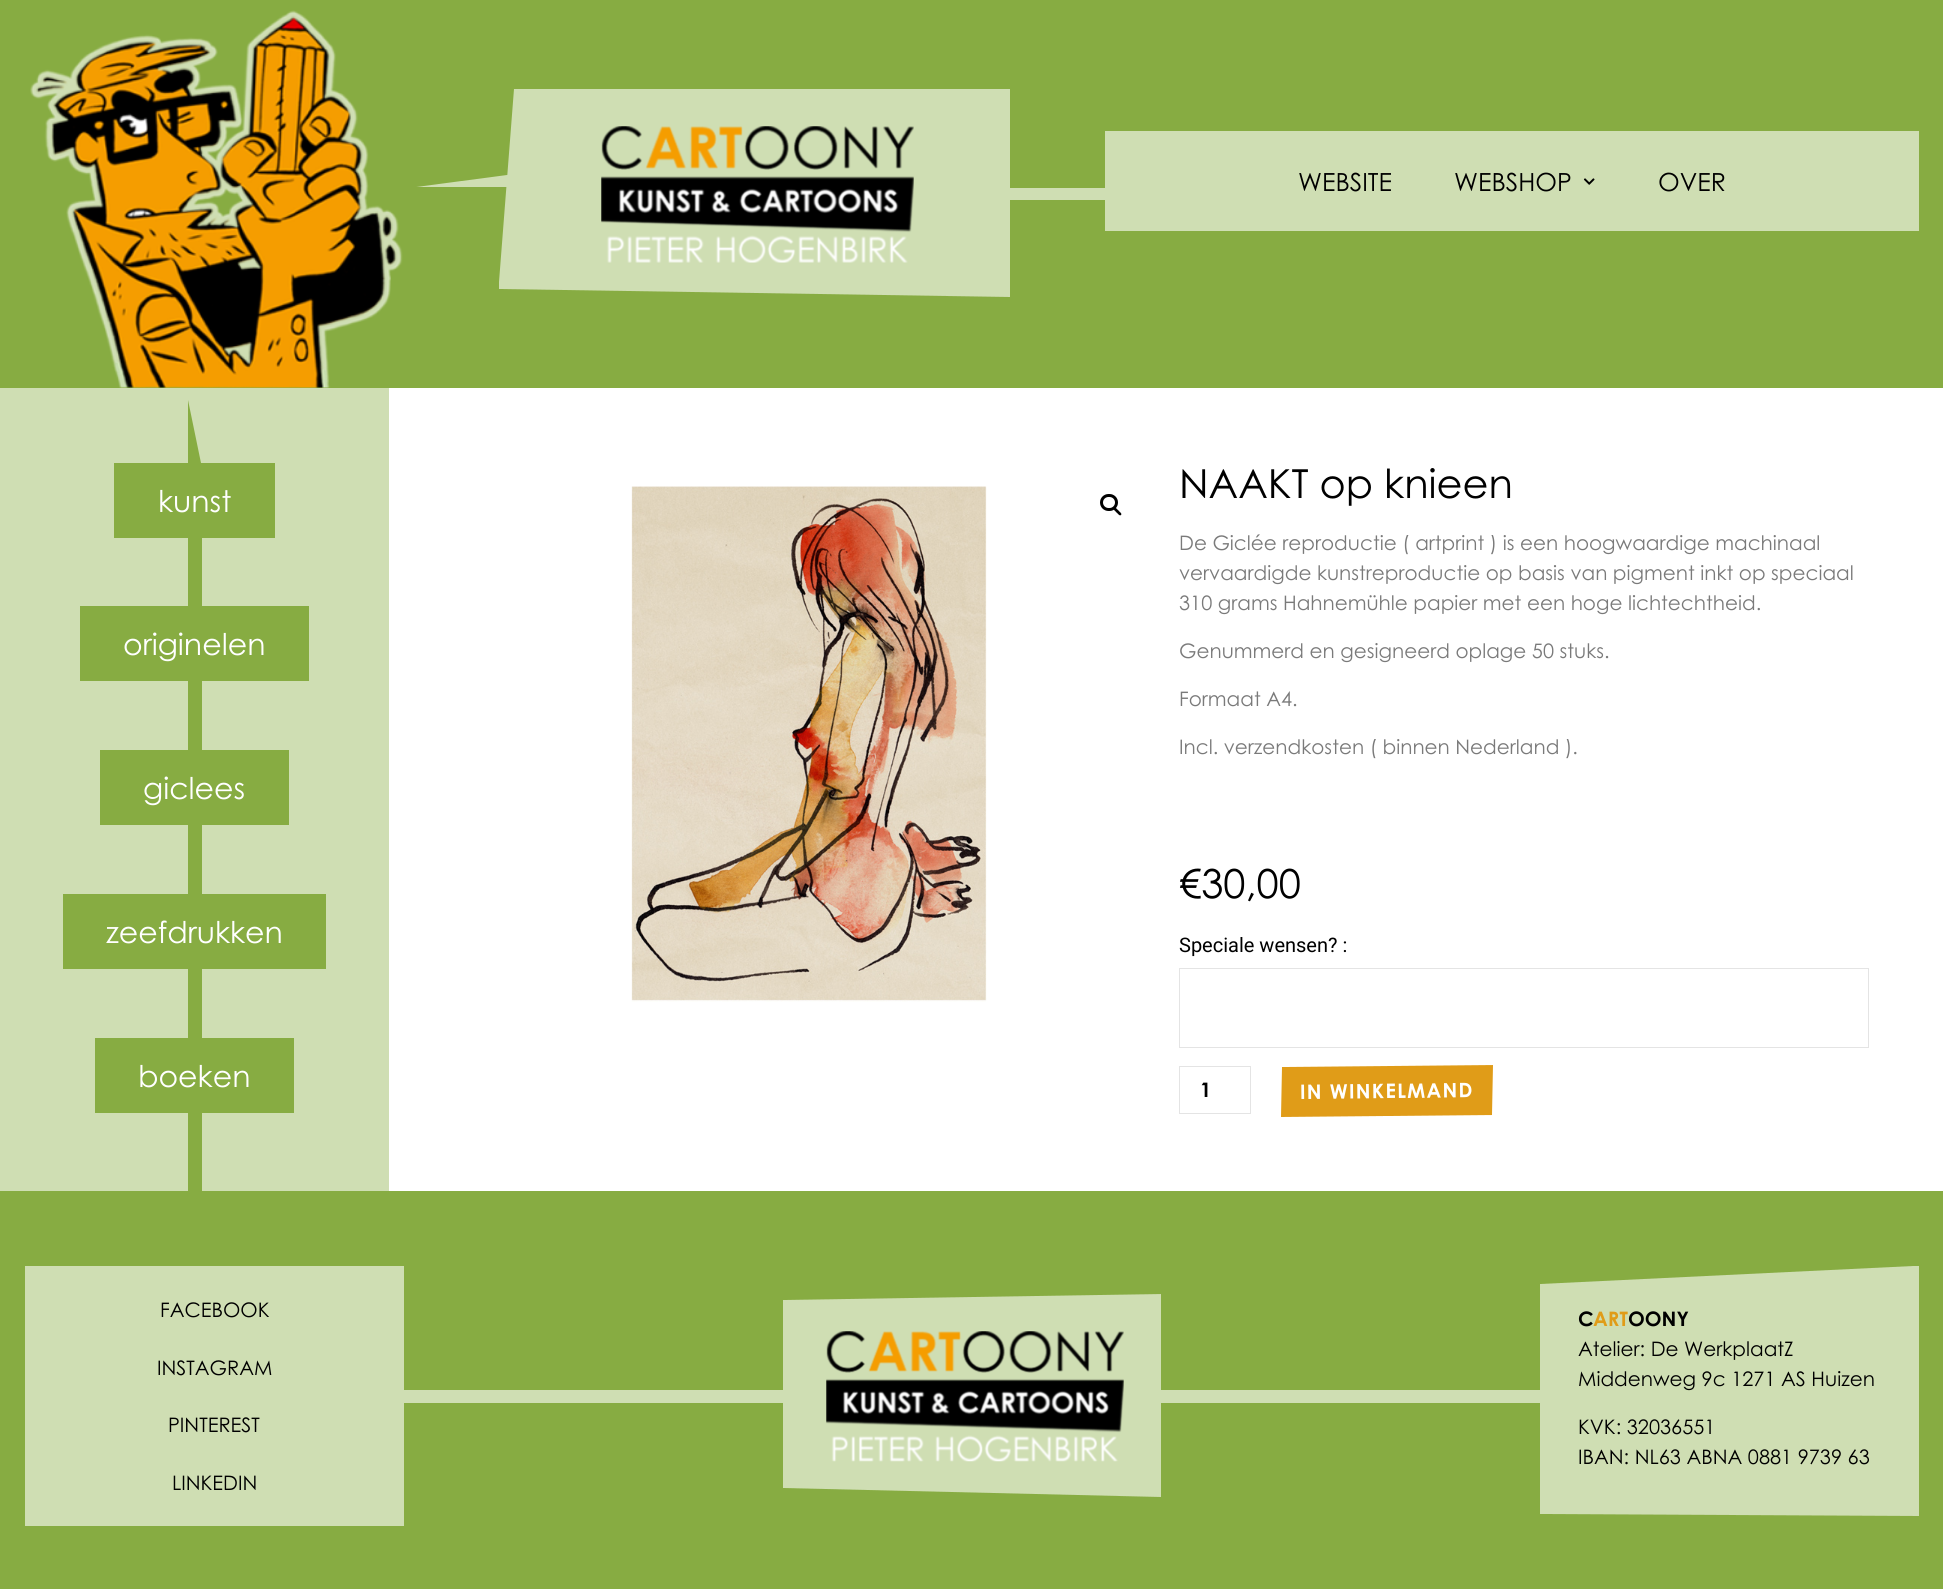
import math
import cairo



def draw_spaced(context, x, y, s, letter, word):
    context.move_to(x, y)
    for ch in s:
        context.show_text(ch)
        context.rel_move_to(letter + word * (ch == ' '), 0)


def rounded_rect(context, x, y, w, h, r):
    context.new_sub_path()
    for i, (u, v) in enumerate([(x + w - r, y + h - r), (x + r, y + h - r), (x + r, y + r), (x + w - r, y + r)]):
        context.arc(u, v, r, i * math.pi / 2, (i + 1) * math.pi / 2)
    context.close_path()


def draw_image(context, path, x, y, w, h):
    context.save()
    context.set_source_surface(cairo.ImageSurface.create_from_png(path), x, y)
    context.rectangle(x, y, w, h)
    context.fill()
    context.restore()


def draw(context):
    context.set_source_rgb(1, 1, 1)
    context.paint()
    context.set_source_rgb(135 / 255, 172 / 255, 66 / 255)
    context.rectangle(0, 0, 1943, 388)
    context.fill()
    draw_image(context, "images/1.png", 30, 10, 373, 378)
    context.set_source_rgb(207 / 255, 222 / 255, 179 / 255)
    context.new_path()
    context.move_to(499, 282)
    context.line_to(514, 89)
    context.line_to(1010, 89)
    context.line_to(1010, 297)
    context.line_to(499, 289)
    context.close_path()
    context.fill()
    context.new_path()
    context.move_to(511, 175)
    context.line_to(507, 175)
    context.line_to(416, 187)
    context.line_to(511, 187)
    context.close_path()
    context.fill()
    draw_image(context, "images/2.png", 601, 126, 313, 137)
    context.rectangle(1105, 131, 814, 100)
    context.fill()
    draw_image(context, "images/3.png", 1583, 178, 12, 7)
    context.rectangle(1010, 188, 95, 12)
    context.fill()
    context.rectangle(0, 388, 389, 803)
    context.fill()
    context.set_source_rgb(135 / 255, 172 / 255, 66 / 255)
    context.rectangle(188, 538, 14, 653)
    context.fill()
    context.new_path()
    context.move_to(201, 463)
    context.line_to(188, 463)
    context.line_to(188, 400)
    context.close_path()
    context.fill()
    context.rectangle(114, 463, 161, 75)
    context.fill()
    context.rectangle(80, 606, 229, 75)
    context.fill()
    context.rectangle(100, 750, 189, 75)
    context.fill()
    context.rectangle(63, 894, 263, 75)
    context.fill()
    context.rectangle(95, 1038, 199, 75)
    context.fill()
    draw_image(context, "images/4.png", 631, 486, 356, 516)
    rounded_rect(context, 1101.5, 495.5, 15, 14, 7)
    context.set_source_rgb(0, 0, 0)
    context.set_line_width(3)
    context.stroke()
    context.new_path()
    context.move_to(1114, 508)
    context.curve_to(1115.5, 506.5, 1117.5, 510, 1118.5, 510.5)
    context.curve_to(1119, 511.5, 1122.5, 513.5, 1121, 515)
    context.curve_to(1119.5, 516.5, 1117.5, 513, 1116.5, 512.5)
    context.curve_to(1116, 511.5, 1112.5, 509.5, 1114, 508)
    context.close_path()
    context.fill()
    context.rectangle(1179.5, 968.5, 689, 79)
    context.set_source_rgb(228 / 255, 228 / 255, 228 / 255)
    context.set_line_width(1)
    context.stroke()
    context.rectangle(1179.5, 1066.5, 71, 47)
    context.stroke()
    context.set_source_rgb(224 / 255, 156 / 255, 24 / 255)
    context.new_path()
    context.move_to(1282, 1067)
    context.line_to(1493, 1065)
    context.line_to(1492, 1115)
    context.line_to(1281, 1117)
    context.close_path()
    context.fill()
    context.set_source_rgb(135 / 255, 172 / 255, 66 / 255)
    context.rectangle(0, 1191, 1943, 398)
    context.fill()
    context.set_source_rgb(207 / 255, 222 / 255, 179 / 255)
    context.rectangle(25, 1266, 379, 260)
    context.fill()
    context.rectangle(404, 1390, 379, 13)
    context.fill()
    context.new_path()
    context.move_to(1161, 1497)
    context.line_to(783, 1488)
    context.line_to(783, 1300)
    context.line_to(1161, 1294)
    context.close_path()
    context.fill()
    draw_image(context, "images/5.png", 826, 1331, 298, 131)
    context.rectangle(1161, 1390, 379, 13)
    context.fill()
    context.new_path()
    context.move_to(1540, 1284)
    context.line_to(1540, 1514)
    context.line_to(1919, 1516)
    context.line_to(1919, 1266)
    context.line_to(1913, 1266)
    context.close_path()
    context.fill()
    context.select_font_face("Century Gothic")
    context.set_font_size(25)
    context.set_source_rgb(0, 0, 0)
    context.move_to(1298, 191)
    context.show_text("WEBSITE")
    context.move_to(1454, 191)
    context.show_text("WEBSHOP")
    context.move_to(1658, 191)
    context.show_text("OVER")
    context.set_font_size(30)
    context.set_source_rgb(1, 1, 1)
    context.move_to(158, 512)
    context.show_text("kunst")
    context.move_to(123, 655)
    context.show_text("originelen")
    context.move_to(143, 799)
    context.show_text("giclees")
    context.move_to(106, 943)
    context.show_text("zeefdrukken")
    context.move_to(138, 1087)
    context.show_text("boeken")
    context.set_font_size(40)
    context.set_source_rgb(0, 0, 0)
    context.move_to(1179, 498)
    context.show_text("NAAKT op knieen")
    context.set_font_size(20)
    context.set_source_rgb(122 / 255, 122 / 255, 122 / 255)
    context.move_to(1179, 550)
    context.show_text("De Giclée reproductie ( artprint ) is een hoogwaardige machinaal")
    context.move_to(1179, 580)
    context.show_text("vervaardigde kunstreproductie op basis van pigment inkt op speciaal")
    context.move_to(1179, 610)
    context.show_text("310 grams Hahnemühle papier met een hoge lichtechtheid.")
    context.move_to(1179, 658)
    context.show_text("Genummerd en gesigneerd oplage 50 stuks.")
    context.move_to(1179, 706)
    context.show_text("Formaat A4.")
    context.move_to(1179, 754)
    context.show_text("Incl. verzendkosten ( binnen Nederland ).")
    context.set_font_size(40)
    context.set_source_rgb(0, 0, 0)
    context.move_to(1179, 898)
    context.show_text("€30,00")
    context.select_font_face("Roboto")
    context.set_font_size(20)
    context.move_to(1179, 952)
    context.show_text("Speciale wensen? :")
    context.select_font_face("Century Gothic", cairo.FontSlant.NORMAL, cairo.FontWeight.BOLD)
    context.move_to(1200, 1097)
    context.show_text("1")
    context.set_source_rgb(1, 1, 1)
    context.save()
    context.translate(1300, 1099)
    context.rotate(-0.6 * math.pi / 180)
    draw_spaced(context, 0, 0, "IN WINKELMAND", 1.25, 0)
    context.restore()
    context.select_font_face("Century Gothic")
    context.set_source_rgb(0, 0, 0)
    context.move_to(160, 1317)
    context.show_text("FACEBOOK")
    context.move_to(157, 1375)
    context.show_text("INSTAGRAM")
    context.move_to(168, 1432)
    context.show_text("PINTEREST")
    context.move_to(172, 1490)
    context.show_text("LINKEDIN")
    context.select_font_face("Century Gothic", cairo.FontSlant.NORMAL, cairo.FontWeight.BOLD)
    context.move_to(1578, 1326)
    context.show_text("C")
    context.set_source_rgb(224 / 255, 156 / 255, 24 / 255)
    context.move_to(1593, 1326)
    context.show_text("ART")
    context.set_source_rgb(0, 0, 0)
    context.move_to(1628, 1326)
    context.show_text("OONY")
    context.select_font_face("Century Gothic")
    context.move_to(1578, 1356)
    context.show_text("Atelier: De WerkplaatZ")
    context.move_to(1578, 1386)
    context.show_text("Middenweg 9c 1271 AS Huizen")
    context.move_to(1578, 1434)
    context.show_text("KVK: 32036551")
    context.move_to(1578, 1464)
    context.show_text("IBAN: NL63 ABNA 0881 9739 63")


surface = cairo.ImageSurface(cairo.Format.RGB24, 1943, 1589)
context = cairo.Context(surface)
options = cairo.FontOptions()
options.set_hint_metrics(cairo.HintMetrics.OFF)
options.set_hint_style(cairo.HintStyle.NONE)
context.set_font_options(options)
context.set_miter_limit(4)
draw(context)
surface.write_to_png("out.png")
